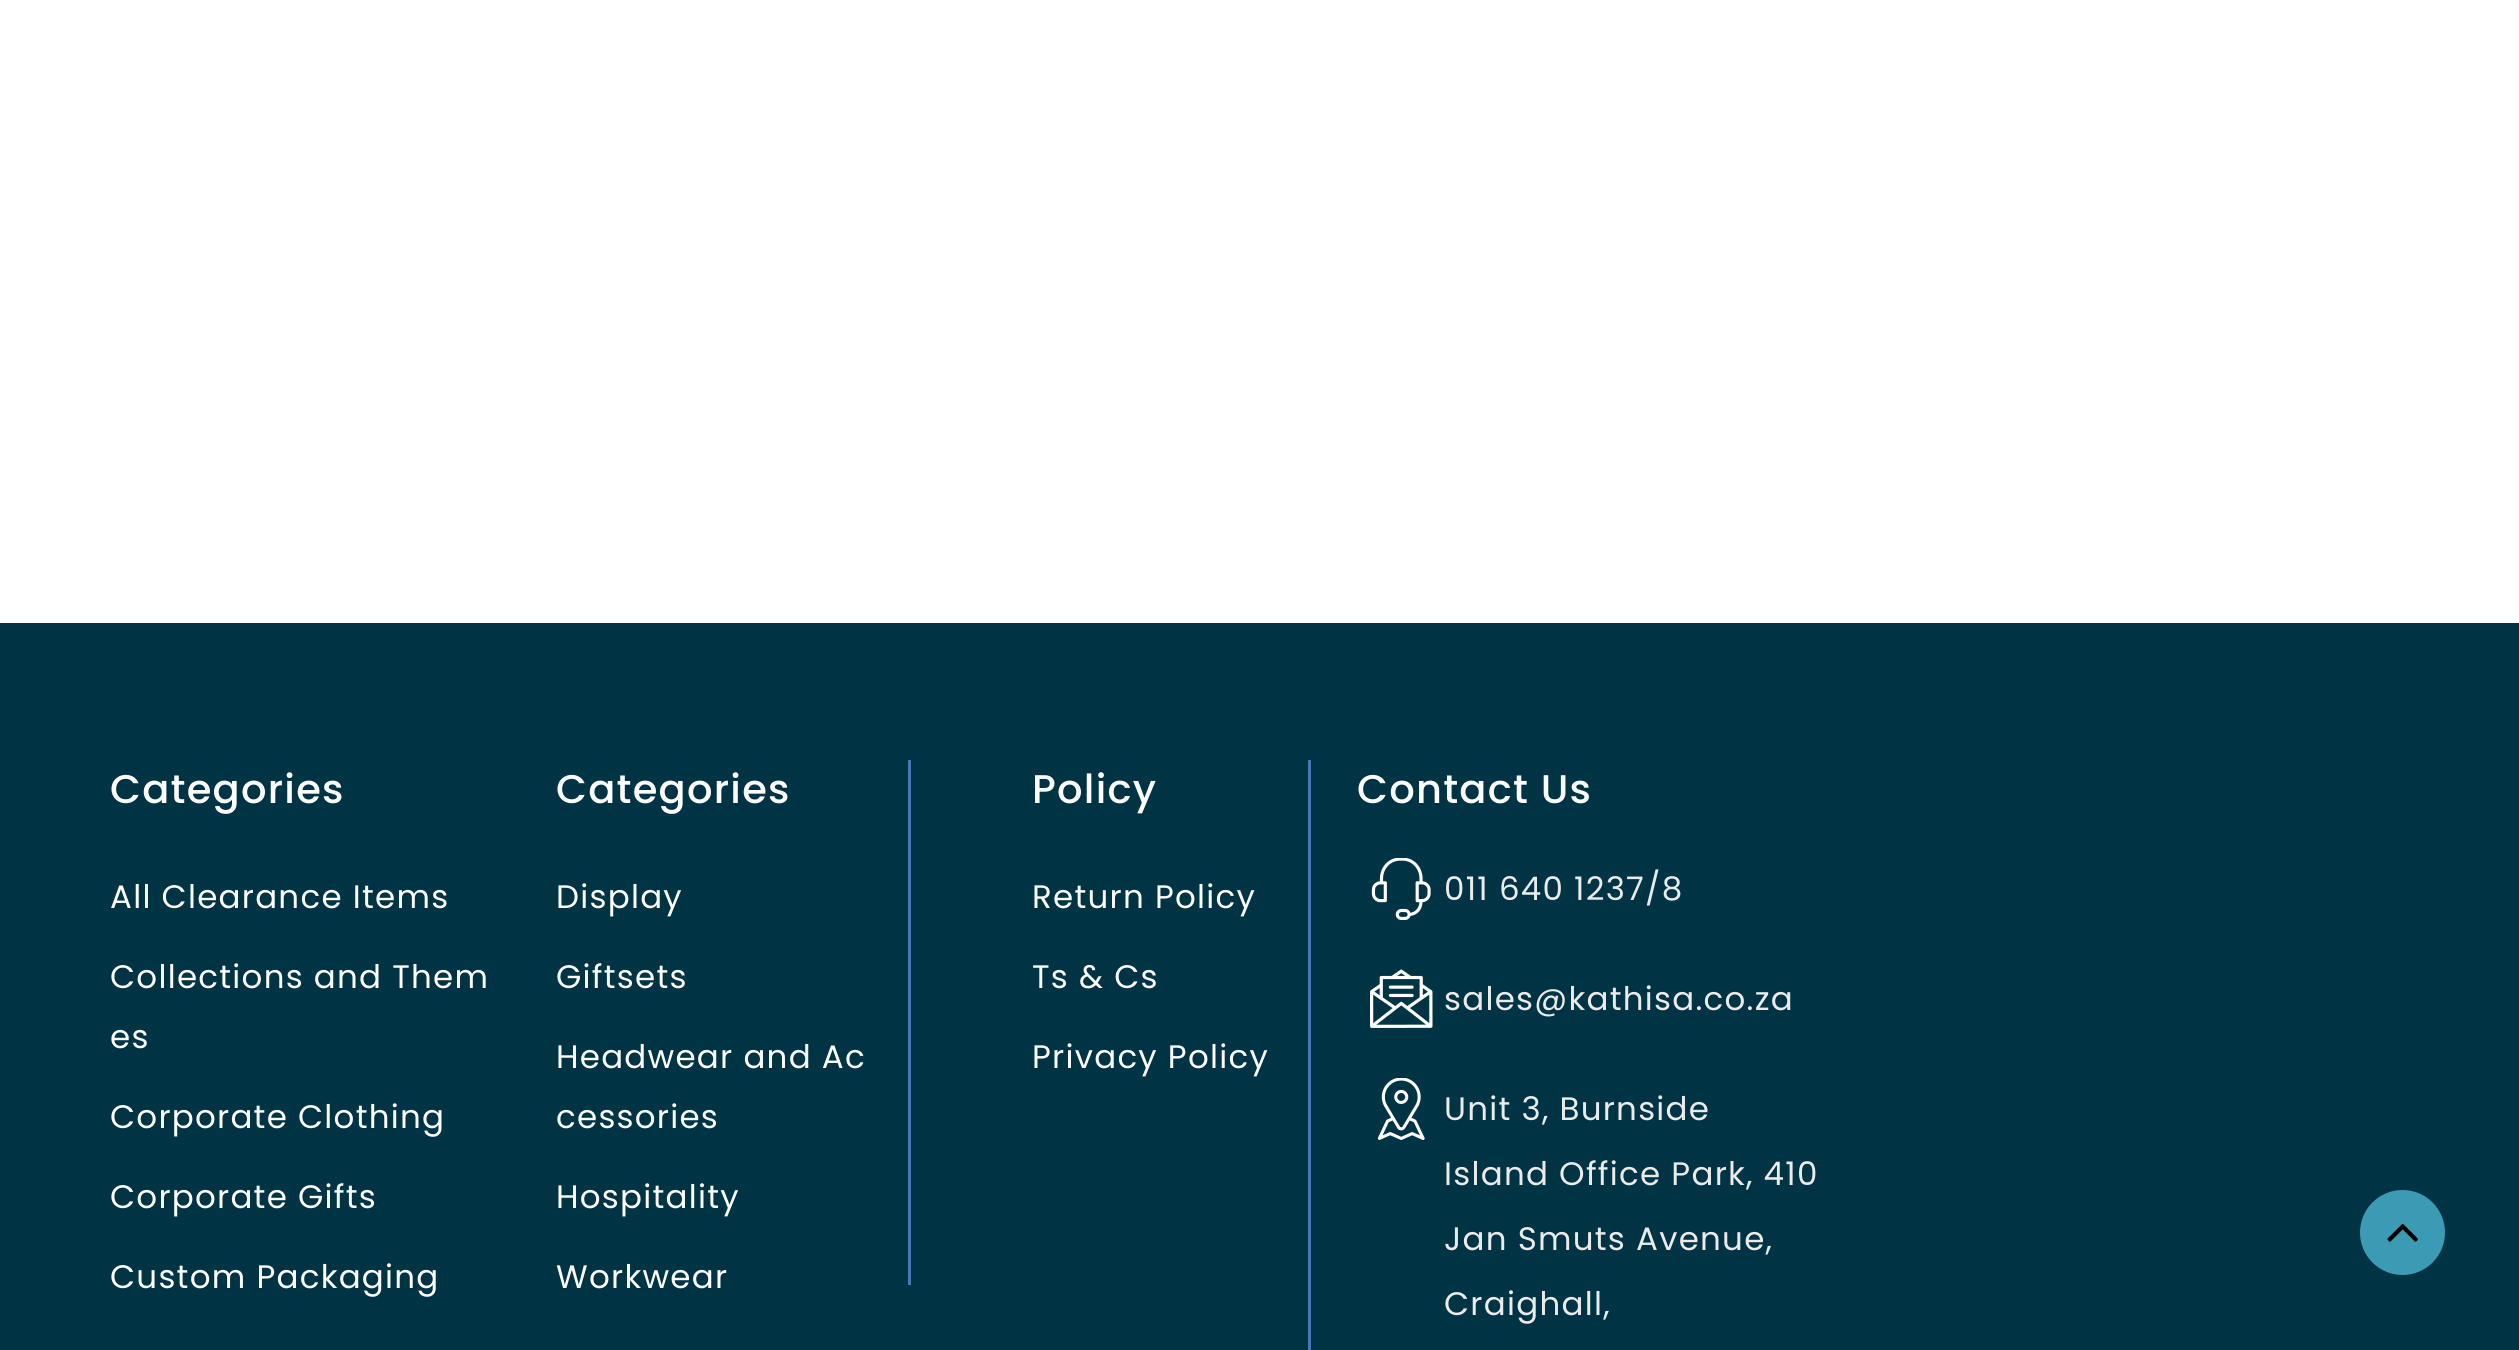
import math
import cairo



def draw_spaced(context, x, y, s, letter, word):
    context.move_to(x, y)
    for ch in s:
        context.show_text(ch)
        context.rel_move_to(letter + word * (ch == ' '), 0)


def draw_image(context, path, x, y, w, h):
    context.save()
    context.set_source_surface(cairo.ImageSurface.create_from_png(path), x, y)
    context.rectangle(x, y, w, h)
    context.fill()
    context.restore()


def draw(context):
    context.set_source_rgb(1, 1, 1)
    context.paint()
    context.set_source_rgb(0, 52 / 255, 68 / 255)
    context.rectangle(0, 623, 2519, 727)
    context.fill()
    context.set_source_rgb(77 / 255, 118 / 255, 184 / 255)
    context.rectangle(908, 760, 3, 525)
    context.fill()
    context.rectangle(1308, 760, 3, 590)
    context.fill()
    draw_image(context, "images/1.png", 1371, 858, 60, 62)
    draw_image(context, "images/2.png", 1370, 969, 63, 59)
    draw_image(context, "images/3.png", 1377, 1078, 48, 62)
    context.set_source_rgb(60 / 255, 155 / 255, 180 / 255)
    context.arc(2402.5, 1232.5, 42.5, 0, 2 * math.pi)
    context.fill()
    draw_image(context, "images/4.png", 2387, 1223, 31, 19)
    context.select_font_face("Poppins Medium")
    context.set_font_size(40)
    context.set_source_rgb(1, 1, 1)
    draw_spaced(context, 110, 803, "Categories", 1.25, 0)
    context.select_font_face("Poppins")
    context.set_font_size(32.5)
    draw_spaced(context, 110, 908, "All Clearance Items", 1.25, 0)
    draw_spaced(context, 110, 988, "Collections and Them", 1.25, 0)
    draw_spaced(context, 110, 1048, "es", 1.25, 0)
    draw_spaced(context, 110, 1128, "Corporate Clothing", 1.25, 0)
    draw_spaced(context, 110, 1208, "Corporate Gifts", 1.25, 0)
    draw_spaced(context, 110, 1288, "Custom Packaging", 1.25, 0)
    context.select_font_face("Poppins Medium")
    context.set_font_size(40)
    draw_spaced(context, 556, 803, "Categories", 1.25, 0)
    context.select_font_face("Poppins")
    context.set_font_size(32.5)
    draw_spaced(context, 556, 908, "Display", 1.25, 0)
    draw_spaced(context, 556, 988, "Giftsets", 1.25, 0)
    draw_spaced(context, 556, 1068, "Headwear and Ac", 1.25, 0)
    draw_spaced(context, 556, 1128, "cessories", 1.25, 0)
    draw_spaced(context, 556, 1208, "Hospitality", 1.25, 0)
    draw_spaced(context, 556, 1288, "Workwear", 1.25, 0)
    context.select_font_face("Poppins Medium")
    context.set_font_size(40)
    draw_spaced(context, 1032, 803, "Policy", 1.25, 0)
    context.select_font_face("Poppins")
    context.set_font_size(32.5)
    draw_spaced(context, 1032, 908, "Return Policy", 1.25, 0)
    draw_spaced(context, 1032, 988, "Ts & Cs", 1.25, 0)
    draw_spaced(context, 1032, 1068, "Privacy Policy", 1.25, 0)
    context.select_font_face("Poppins Medium")
    context.set_font_size(40)
    draw_spaced(context, 1357, 803, "Contact Us", 1.25, 0)
    context.select_font_face("Poppins")
    context.set_font_size(32.5)
    context.set_source_rgb(235 / 255, 235 / 255, 235 / 255)
    draw_spaced(context, 1444, 900, "011 640 1237/8", 1.25, 0)
    draw_spaced(context, 1444, 1010, "sales@kathisa.co.za", 1.25, 0)
    draw_spaced(context, 1444, 1120, "Unit 3, Burnside", 1.25, 0)
    draw_spaced(context, 1444, 1185, "Island Office Park, 410", 1.25, 0)
    draw_spaced(context, 1444, 1250, "Jan Smuts Avenue,", 1.25, 0)
    draw_spaced(context, 1444, 1315, "Craighall,", 1.25, 0)


surface = cairo.ImageSurface(cairo.Format.RGB24, 2519, 1350)
context = cairo.Context(surface)
options = cairo.FontOptions()
options.set_hint_metrics(cairo.HintMetrics.OFF)
options.set_hint_style(cairo.HintStyle.NONE)
context.set_font_options(options)
context.set_miter_limit(4)
draw(context)
surface.write_to_png("out.png")
